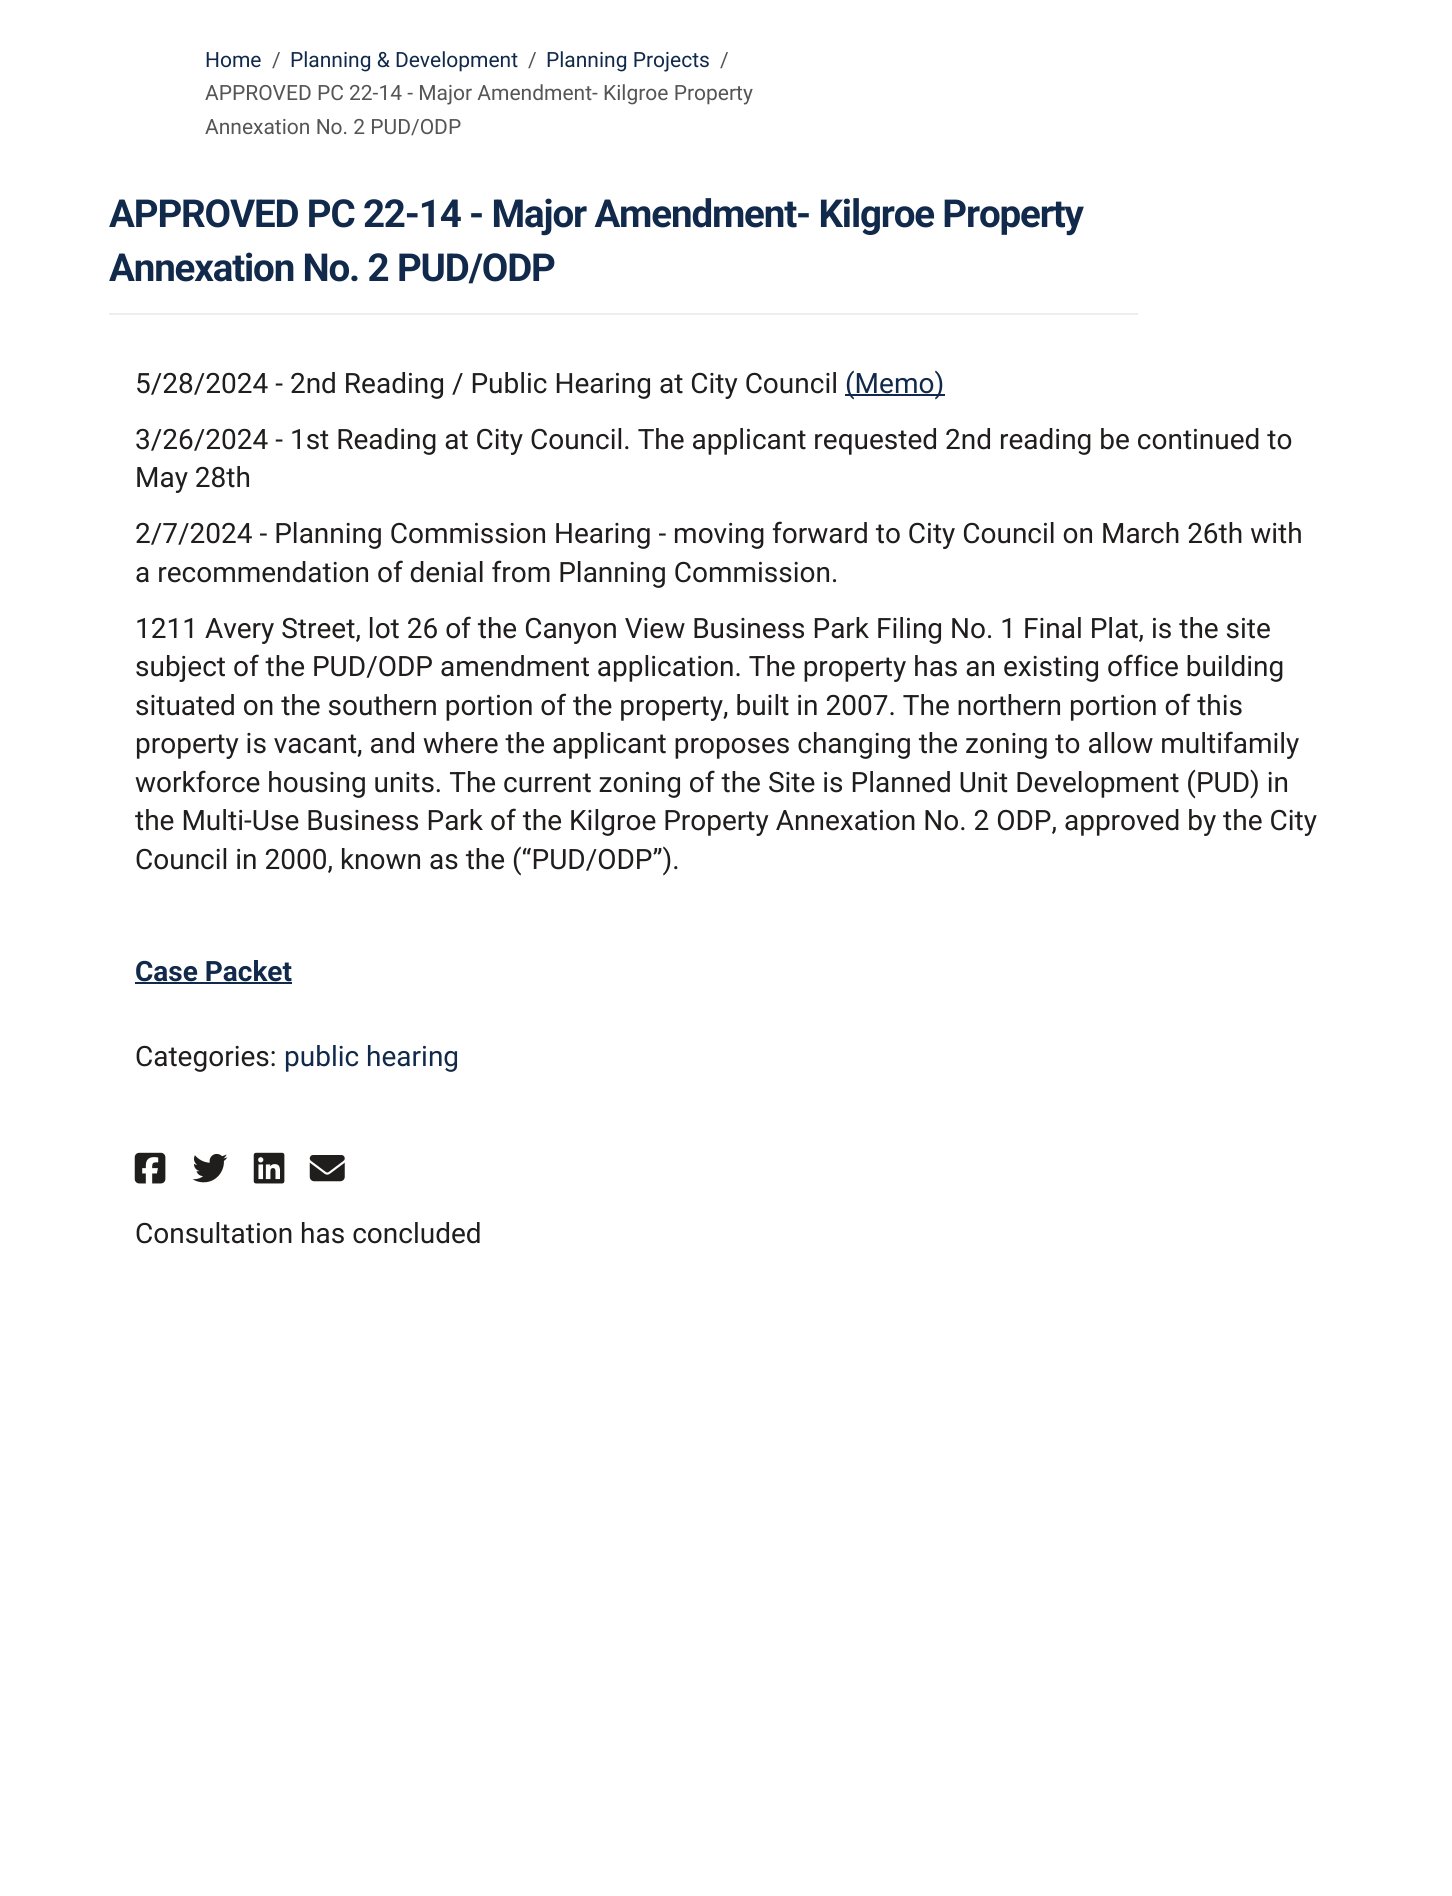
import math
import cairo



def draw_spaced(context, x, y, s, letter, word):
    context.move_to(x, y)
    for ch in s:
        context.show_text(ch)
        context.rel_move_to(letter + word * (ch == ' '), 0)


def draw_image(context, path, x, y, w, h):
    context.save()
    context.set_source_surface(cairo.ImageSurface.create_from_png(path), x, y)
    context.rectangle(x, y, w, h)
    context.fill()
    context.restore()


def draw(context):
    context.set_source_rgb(1, 1, 1)
    context.paint()
    context.set_source_rgb(238 / 255, 238 / 255, 238 / 255)
    context.rectangle(109, 313, 1029, 2)
    context.fill()
    context.set_source_rgb(17 / 255, 41 / 255, 75 / 255)
    context.rectangle(845, 394, 100, 2)
    context.fill()
    context.rectangle(135, 982, 157, 2)
    context.fill()
    draw_image(context, "images/1.png", 134, 1152, 32, 32)
    draw_image(context, "images/2.png", 192, 1153, 36, 30)
    draw_image(context, "images/3.png", 253, 1152, 32, 32)
    draw_image(context, "images/4.png", 309, 1155, 36, 27)
    context.select_font_face("Roboto")
    context.set_font_size(21)
    context.move_to(205, 67)
    context.show_text("Home")
    context.set_source_rgb(85 / 255, 85 / 255, 85 / 255)
    context.move_to(272, 67)
    context.show_text("/")
    context.set_source_rgb(17 / 255, 41 / 255, 75 / 255)
    context.move_to(290, 67)
    context.show_text("Planning & Development")
    context.set_source_rgb(85 / 255, 85 / 255, 85 / 255)
    context.move_to(528, 67)
    context.show_text("/")
    context.set_source_rgb(17 / 255, 41 / 255, 75 / 255)
    context.move_to(546, 67)
    context.show_text("Planning Projects")
    context.set_source_rgb(85 / 255, 85 / 255, 85 / 255)
    context.move_to(720, 67)
    context.show_text("/")
    context.move_to(205, 100)
    context.show_text("APPROVED PC 22-14 - Major Amendment- Kilgroe Property")
    context.move_to(205, 134)
    context.show_text("Annexation No. 2 PUD/ODP")
    context.select_font_face("Roboto", cairo.FontSlant.NORMAL, cairo.FontWeight.BOLD)
    context.set_font_size(38.5)
    context.set_source_rgb(17 / 255, 41 / 255, 75 / 255)
    draw_spaced(context, 109, 227, "APPROVED PC 22-14 - Major Amendment- Kilgroe Property", -1.15, 0)
    draw_spaced(context, 109, 281, "Annexation No. 2 PUD/ODP", -1.15, 0)
    context.select_font_face("Roboto")
    context.set_font_size(28)
    context.set_source_rgb(32 / 255, 29 / 255, 29 / 255)
    context.move_to(135, 393)
    context.show_text("5/28/2024 - 2nd Reading / Public Hearing at City Council")
    context.set_source_rgb(17 / 255, 41 / 255, 75 / 255)
    context.move_to(845, 393)
    context.show_text("(Memo)")
    context.set_source_rgb(32 / 255, 29 / 255, 29 / 255)
    context.move_to(135, 449)
    context.show_text("3/26/2024 - 1st Reading at City Council. The applicant requested 2nd reading be continued to")
    context.move_to(135, 487)
    context.show_text("May 28th")
    context.move_to(135, 543)
    context.show_text("2/7/2024 - Planning Commission Hearing - moving forward to City Council on March 26th with")
    context.move_to(135, 582)
    context.show_text("a recommendation of denial from Planning Commission.")
    context.move_to(135, 638)
    context.show_text("1211 Avery Street, lot 26 of the Canyon View Business Park Filing No. 1 Final Plat, is the site")
    context.move_to(135, 676)
    context.show_text("subject of the PUD/ODP amendment application. The property has an existing office building")
    context.move_to(135, 715)
    context.show_text("situated on the southern portion of the property, built in 2007. The northern portion of this")
    context.move_to(135, 753)
    context.show_text("property is vacant, and where the applicant proposes changing the zoning to allow multifamily")
    context.move_to(135, 792)
    context.show_text("workforce housing units. The current zoning of the Site is Planned Unit Development (PUD) in")
    context.move_to(135, 830)
    context.show_text("the Multi-Use Business Park of the Kilgroe Property Annexation No. 2 ODP, approved by the City")
    context.move_to(135, 869)
    context.show_text("Council in 2000, known as the (“PUD/ODP”).")
    context.select_font_face("Roboto", cairo.FontSlant.NORMAL, cairo.FontWeight.BOLD)
    context.set_source_rgb(17 / 255, 41 / 255, 75 / 255)
    context.move_to(135, 981)
    context.show_text("Case Packet")
    context.select_font_face("Roboto")
    context.set_source_rgb(32 / 255, 29 / 255, 29 / 255)
    context.move_to(135, 1066)
    context.show_text("Categories:")
    context.set_source_rgb(17 / 255, 41 / 255, 75 / 255)
    context.move_to(284, 1066)
    context.show_text("public hearing")
    context.set_source_rgb(32 / 255, 29 / 255, 29 / 255)
    context.move_to(135, 1243)
    context.show_text("Consultation has concluded")


surface = cairo.ImageSurface(cairo.Format.RGB24, 1452, 1896)
context = cairo.Context(surface)
options = cairo.FontOptions()
options.set_hint_metrics(cairo.HintMetrics.OFF)
options.set_hint_style(cairo.HintStyle.NONE)
context.set_font_options(options)
context.set_miter_limit(4)
draw(context)
surface.write_to_png("out.png")
